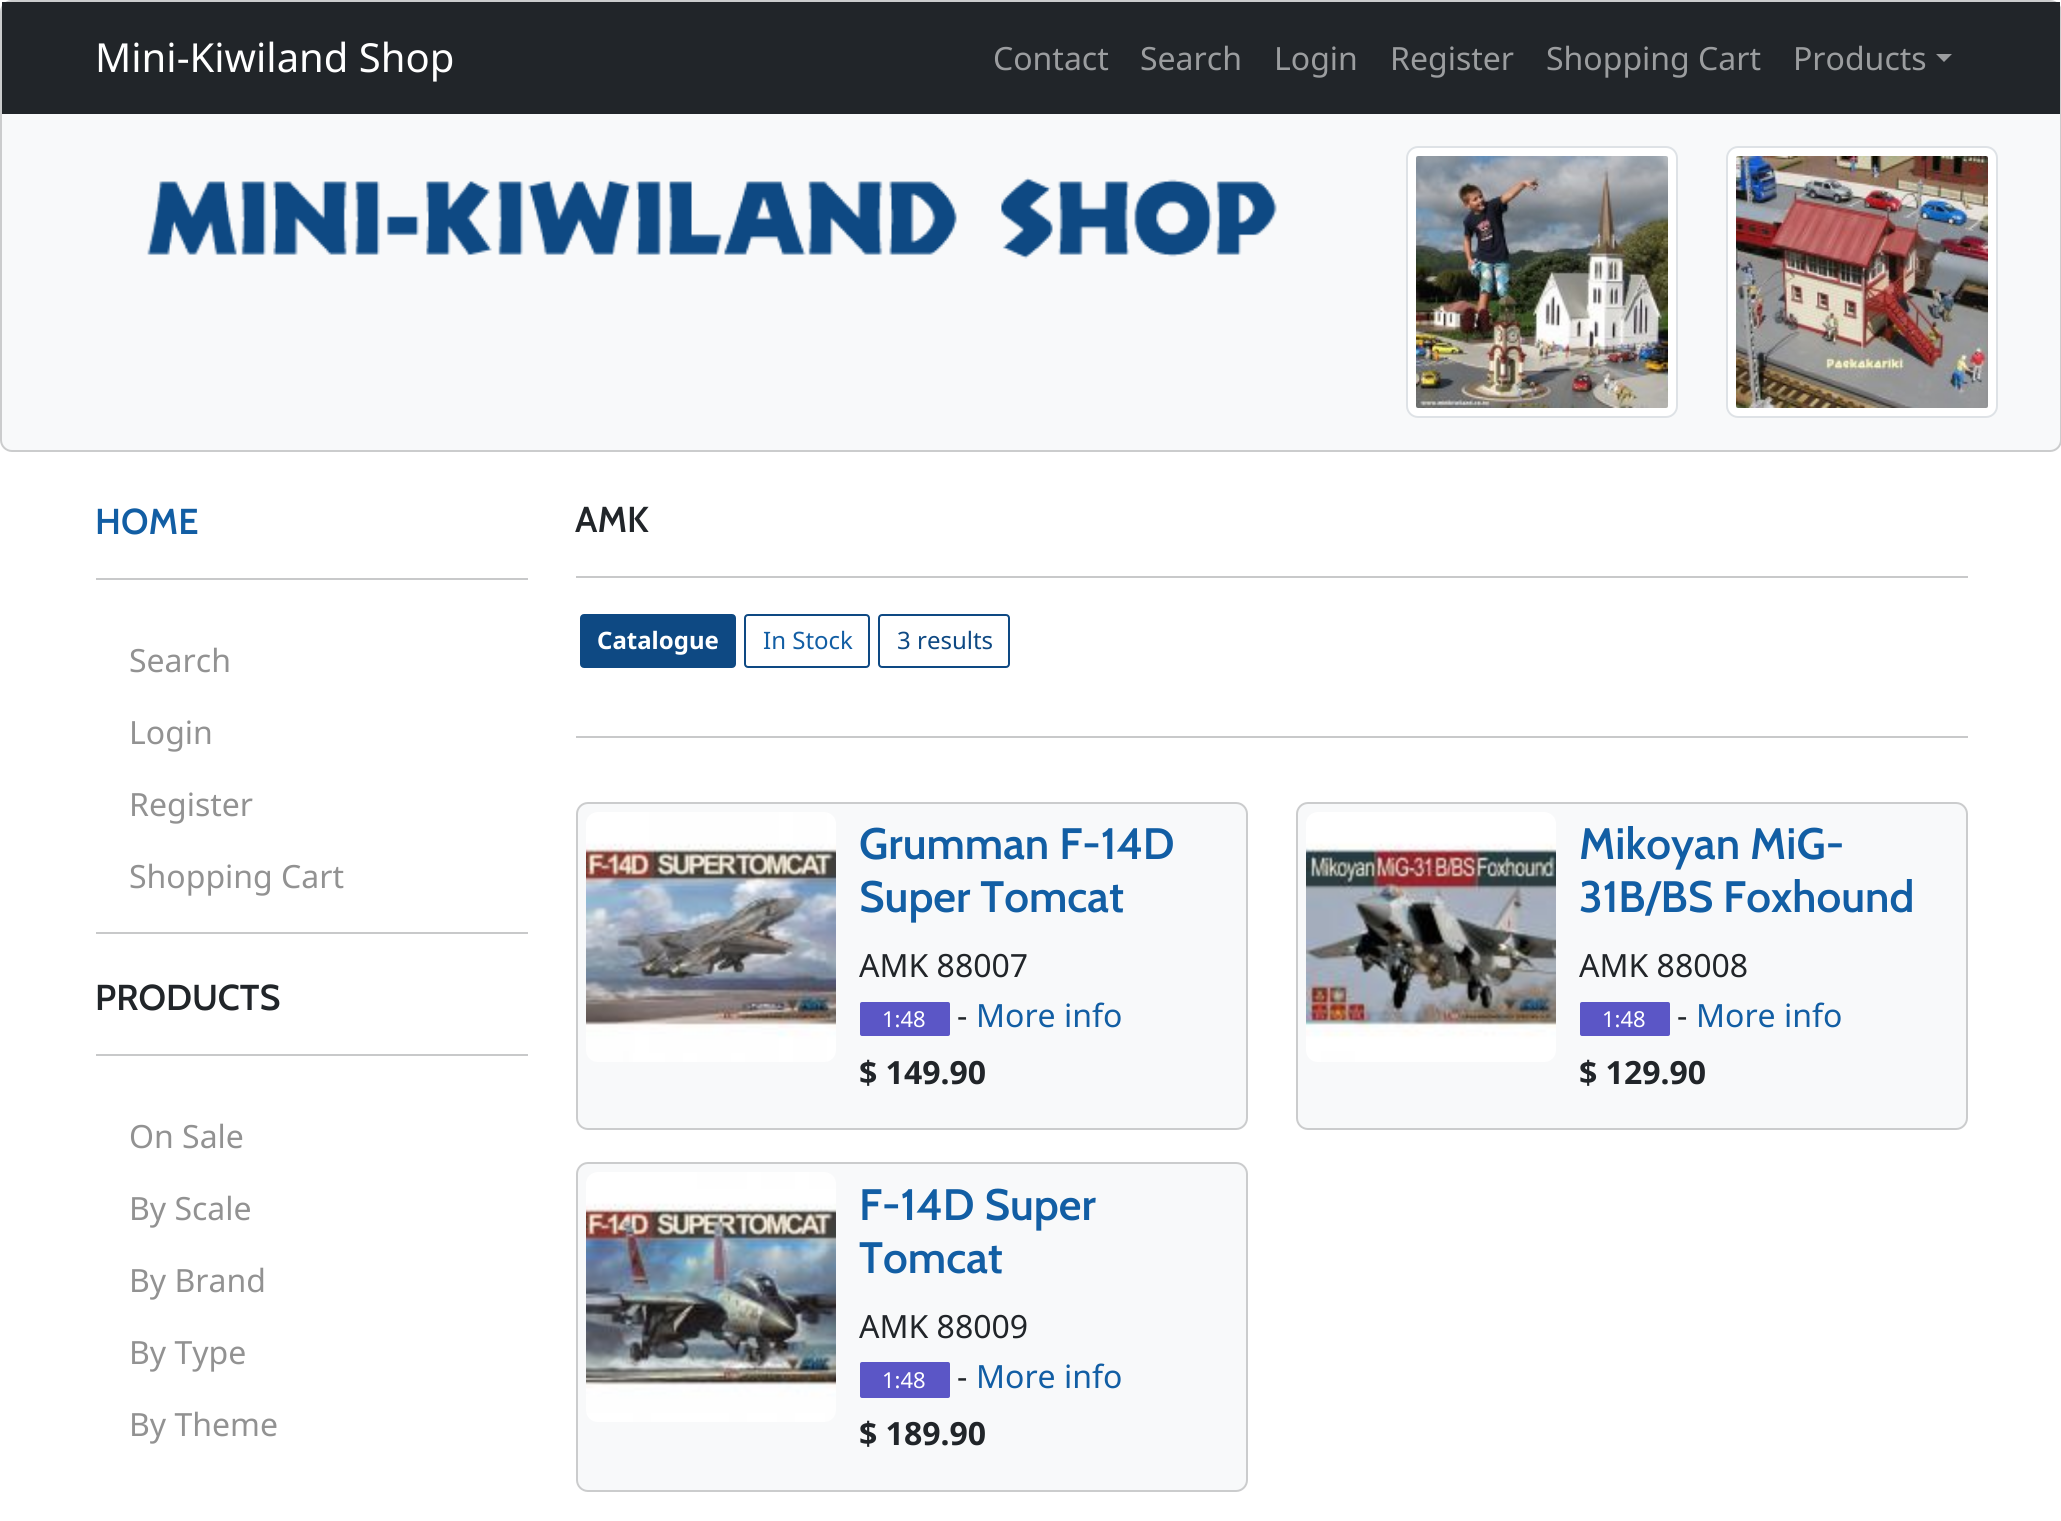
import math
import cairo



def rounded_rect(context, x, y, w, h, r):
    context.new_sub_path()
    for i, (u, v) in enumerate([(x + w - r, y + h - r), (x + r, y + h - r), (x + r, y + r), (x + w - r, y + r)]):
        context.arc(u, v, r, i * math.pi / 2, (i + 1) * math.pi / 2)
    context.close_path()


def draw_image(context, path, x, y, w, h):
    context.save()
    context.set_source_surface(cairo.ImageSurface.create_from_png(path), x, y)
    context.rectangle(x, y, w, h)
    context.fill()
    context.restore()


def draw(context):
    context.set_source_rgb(1, 1, 1)
    context.paint()
    context.set_source_rgb(248 / 255, 249 / 255, 250 / 255)
    rounded_rect(context, 0, 0, 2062, 452, 12)
    context.fill()
    rounded_rect(context, 1, 1, 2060, 450, 11)
    context.set_source_rgba(0, 0, 0, 0.18)
    context.stroke()
    context.set_source_rgb(33 / 255, 37 / 255, 41 / 255)
    context.rectangle(2, 2, 2058, 112)
    context.fill()
    context.set_source_rgb(155 / 255, 157 / 255, 159 / 255)
    context.new_path()
    context.move_to(1936, 54)
    context.line_to(1952, 54)
    context.line_to(1944, 62)
    context.close_path()
    context.fill()
    draw_image(context, "images/1.png", 147, 177, 1130, 82)
    context.set_source_rgb(1, 1, 1)
    rounded_rect(context, 1407, 147, 270, 270, 11)
    context.fill_preserve()
    context.set_source_rgb(222 / 255, 226 / 255, 230 / 255)
    context.stroke()
    draw_image(context, "images/2.png", 1416, 156, 252, 252)
    context.set_source_rgb(1, 1, 1)
    rounded_rect(context, 1727, 147, 270, 270, 11)
    context.fill_preserve()
    context.set_source_rgb(222 / 255, 226 / 255, 230 / 255)
    context.stroke()
    draw_image(context, "images/3.png", 1736, 156, 252, 252)
    context.set_source_rgb(200 / 255, 201 / 255, 202 / 255)
    context.rectangle(96, 578, 432, 2)
    context.fill()
    context.rectangle(96, 932, 432, 2)
    context.fill()
    context.rectangle(96, 1054, 432, 2)
    context.fill()
    context.rectangle(576, 576, 1392, 2)
    context.fill()
    context.set_source_rgb(14 / 255, 73 / 255, 131 / 255)
    rounded_rect(context, 581, 615, 154, 52, 3)
    context.fill_preserve()
    context.stroke()
    rounded_rect(context, 745, 615, 124, 52, 3)
    context.stroke()
    rounded_rect(context, 879, 615, 130, 52, 3)
    context.stroke()
    context.set_source_rgb(200 / 255, 201 / 255, 202 / 255)
    context.rectangle(576, 736, 1392, 2)
    context.fill()
    context.set_source_rgb(248 / 255, 249 / 255, 250 / 255)
    rounded_rect(context, 576, 802, 672, 328, 12)
    context.fill()
    rounded_rect(context, 577, 803, 670, 326, 11)
    context.set_source_rgba(0, 0, 0, 0.18)
    context.stroke()
    draw_image(context, "images/4.png", 586, 812, 250, 250)
    context.set_source_rgb(91 / 255, 86 / 255, 198 / 255)
    rounded_rect(context, 860, 1002, 90, 34, 2)
    context.fill()
    context.set_source_rgb(248 / 255, 249 / 255, 250 / 255)
    rounded_rect(context, 1296, 802, 672, 328, 12)
    context.fill()
    rounded_rect(context, 1297, 803, 670, 326, 11)
    context.set_source_rgba(0, 0, 0, 0.18)
    context.stroke()
    draw_image(context, "images/5.png", 1306, 812, 250, 250)
    context.set_source_rgb(91 / 255, 86 / 255, 198 / 255)
    rounded_rect(context, 1580, 1002, 90, 34, 2)
    context.fill()
    context.set_source_rgb(248 / 255, 249 / 255, 250 / 255)
    rounded_rect(context, 576, 1162, 672, 330, 12)
    context.fill()
    rounded_rect(context, 577, 1163, 670, 328, 11)
    context.set_source_rgba(0, 0, 0, 0.18)
    context.stroke()
    draw_image(context, "images/6.png", 586, 1172, 250, 250)
    context.set_source_rgb(91 / 255, 86 / 255, 198 / 255)
    rounded_rect(context, 860, 1362, 90, 36, 2)
    context.fill()
    context.select_font_face("Noto Sans")
    context.set_font_size(40)
    context.set_source_rgb(1, 1, 1)
    context.move_to(95, 72)
    context.show_text("Mini-Kiwiland Shop")
    context.set_font_size(32)
    context.set_source_rgb(155 / 255, 157 / 255, 159 / 255)
    context.move_to(993, 70)
    context.show_text("Contact")
    context.move_to(1140, 70)
    context.show_text("Search")
    context.move_to(1274, 70)
    context.show_text("Login")
    context.move_to(1390, 70)
    context.show_text("Register")
    context.move_to(1546, 70)
    context.show_text("Shopping Cart")
    context.move_to(1793, 70)
    context.show_text("Products")
    context.select_font_face("Cabin SemiBold")
    context.set_font_size(36)
    context.set_source_rgb(18 / 255, 94 / 255, 164 / 255)
    context.move_to(95, 534)
    context.show_text("HOME")
    context.select_font_face("Noto Sans")
    context.set_font_size(32)
    context.set_source_rgb(146 / 255, 146 / 255, 146 / 255)
    context.move_to(129, 672)
    context.show_text("Search")
    context.move_to(129, 744)
    context.show_text("Login")
    context.move_to(129, 816)
    context.show_text("Register")
    context.move_to(129, 888)
    context.show_text("Shopping Cart")
    context.select_font_face("Cabin SemiBold")
    context.set_font_size(36)
    context.set_source_rgb(33 / 255, 37 / 255, 41 / 255)
    context.move_to(95, 1010)
    context.show_text("PRODUCTS")
    context.select_font_face("Noto Sans")
    context.set_font_size(32)
    context.set_source_rgb(146 / 255, 146 / 255, 146 / 255)
    context.move_to(129, 1148)
    context.show_text("On Sale")
    context.move_to(129, 1220)
    context.show_text("By Scale")
    context.move_to(129, 1292)
    context.show_text("By Brand")
    context.move_to(129, 1364)
    context.show_text("By Type")
    context.move_to(129, 1436)
    context.show_text("By Theme")
    context.select_font_face("Cabin SemiBold")
    context.set_font_size(36)
    context.set_source_rgb(33 / 255, 37 / 255, 41 / 255)
    context.move_to(575, 532)
    context.show_text("AMK")
    context.select_font_face("Noto Sans", cairo.FontSlant.NORMAL, cairo.FontWeight.BOLD)
    context.set_font_size(24)
    context.set_source_rgb(1, 1, 1)
    context.move_to(597, 649)
    context.show_text("Catalogue")
    context.select_font_face("Noto Sans")
    context.set_source_rgb(18 / 255, 94 / 255, 164 / 255)
    context.move_to(763, 649)
    context.show_text("In Stock")
    context.set_source_rgb(14 / 255, 73 / 255, 131 / 255)
    context.move_to(897, 649)
    context.show_text("3 results")
    context.select_font_face("Cabin SemiBold")
    context.set_font_size(44)
    context.set_source_rgb(18 / 255, 94 / 255, 164 / 255)
    context.move_to(859, 859)
    context.show_text("Grumman F-14D")
    context.move_to(859, 912)
    context.show_text("Super Tomcat")
    context.select_font_face("Noto Sans")
    context.set_font_size(32)
    context.set_source_rgb(33 / 255, 37 / 255, 41 / 255)
    context.move_to(859, 977)
    context.show_text("AMK 88007")
    context.set_font_size(22)
    context.set_source_rgb(1, 1, 1)
    context.move_to(882, 1027)
    context.show_text("1:48")
    context.set_font_size(32)
    context.set_source_rgb(33 / 255, 37 / 255, 41 / 255)
    context.move_to(957, 1027)
    context.show_text("-")
    context.set_source_rgb(18 / 255, 94 / 255, 164 / 255)
    context.move_to(976, 1027)
    context.show_text("More info")
    context.select_font_face("Noto Sans", cairo.FontSlant.NORMAL, cairo.FontWeight.BOLD)
    context.set_source_rgb(33 / 255, 37 / 255, 41 / 255)
    context.move_to(859, 1084)
    context.show_text("$ 149.90")
    context.select_font_face("Cabin SemiBold")
    context.set_font_size(44)
    context.set_source_rgb(18 / 255, 94 / 255, 164 / 255)
    context.move_to(1579, 859)
    context.show_text("Mikoyan MiG-")
    context.move_to(1579, 912)
    context.show_text("31B/BS Foxhound")
    context.select_font_face("Noto Sans")
    context.set_font_size(32)
    context.set_source_rgb(33 / 255, 37 / 255, 41 / 255)
    context.move_to(1579, 977)
    context.show_text("AMK 88008")
    context.set_font_size(22)
    context.set_source_rgb(1, 1, 1)
    context.move_to(1602, 1027)
    context.show_text("1:48")
    context.set_font_size(32)
    context.set_source_rgb(33 / 255, 37 / 255, 41 / 255)
    context.move_to(1677, 1027)
    context.show_text("-")
    context.set_source_rgb(18 / 255, 94 / 255, 164 / 255)
    context.move_to(1696, 1027)
    context.show_text("More info")
    context.select_font_face("Noto Sans", cairo.FontSlant.NORMAL, cairo.FontWeight.BOLD)
    context.set_source_rgb(33 / 255, 37 / 255, 41 / 255)
    context.move_to(1579, 1084)
    context.show_text("$ 129.90")
    context.select_font_face("Cabin SemiBold")
    context.set_font_size(44)
    context.set_source_rgb(18 / 255, 94 / 255, 164 / 255)
    context.move_to(859, 1220)
    context.show_text("F-14D Super")
    context.move_to(859, 1273)
    context.show_text("Tomcat")
    context.select_font_face("Noto Sans")
    context.set_font_size(32)
    context.set_source_rgb(33 / 255, 37 / 255, 41 / 255)
    context.move_to(859, 1338)
    context.show_text("AMK 88009")
    context.set_font_size(22)
    context.set_source_rgb(1, 1, 1)
    context.move_to(882, 1388)
    context.show_text("1:48")
    context.set_font_size(32)
    context.set_source_rgb(33 / 255, 37 / 255, 41 / 255)
    context.move_to(957, 1388)
    context.show_text("-")
    context.set_source_rgb(18 / 255, 94 / 255, 164 / 255)
    context.move_to(976, 1388)
    context.show_text("More info")
    context.select_font_face("Noto Sans", cairo.FontSlant.NORMAL, cairo.FontWeight.BOLD)
    context.set_source_rgb(33 / 255, 37 / 255, 41 / 255)
    context.move_to(859, 1445)
    context.show_text("$ 189.90")


surface = cairo.ImageSurface(cairo.Format.RGB24, 2061, 1521)
context = cairo.Context(surface)
options = cairo.FontOptions()
options.set_hint_metrics(cairo.HintMetrics.OFF)
options.set_hint_style(cairo.HintStyle.NONE)
context.set_font_options(options)
context.set_miter_limit(4)
draw(context)
surface.write_to_png("out.png")
